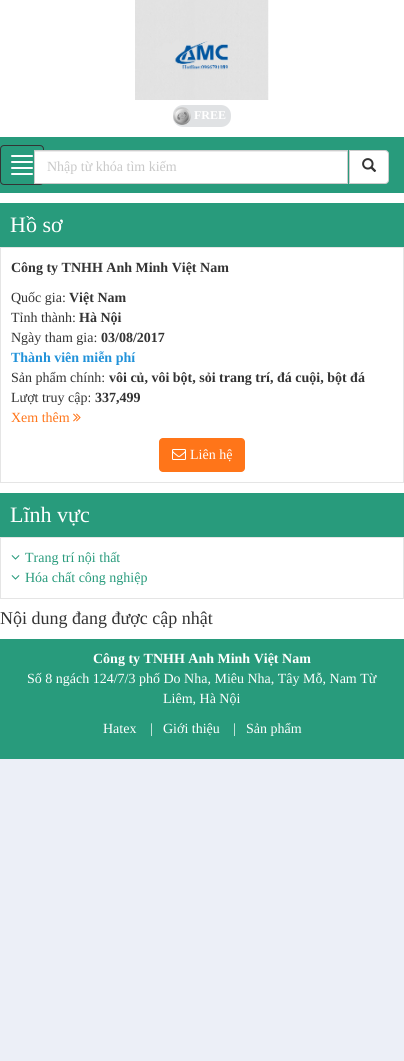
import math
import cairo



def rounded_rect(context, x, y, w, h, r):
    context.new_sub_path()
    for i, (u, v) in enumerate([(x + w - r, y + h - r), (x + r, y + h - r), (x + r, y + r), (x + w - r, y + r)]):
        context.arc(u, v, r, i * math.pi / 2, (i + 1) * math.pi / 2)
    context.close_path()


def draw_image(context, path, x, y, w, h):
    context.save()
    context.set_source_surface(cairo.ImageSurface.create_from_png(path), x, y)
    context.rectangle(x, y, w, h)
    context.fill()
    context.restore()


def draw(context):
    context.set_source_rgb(236 / 255, 239 / 255, 247 / 255)
    context.paint()
    context.set_source_rgb(1, 1, 1)
    context.rectangle(0, 0, 404, 137)
    context.fill()
    draw_image(context, "images/1.png", 135, 0, 134, 100)
    context.set_source_rgb(224 / 255, 226 / 255, 228 / 255)
    rounded_rect(context, 173, 105, 58, 22, 10)
    context.fill()
    draw_image(context, "images/2.png", 173, 107, 18, 18)
    context.set_source_rgb(40 / 255, 155 / 255, 124 / 255)
    context.rectangle(0, 137, 404, 56)
    context.fill()
    rounded_rect(context, 0.5, 145.5, 43, 39, 3.5)
    context.set_source_rgb(51 / 255, 51 / 255, 51 / 255)
    context.set_line_width(1)
    context.stroke()
    context.set_source_rgb(1, 1, 1)
    rounded_rect(context, 11, 155, 22, 2, 1)
    context.fill()
    rounded_rect(context, 11, 161, 22, 2, 1)
    context.fill()
    rounded_rect(context, 11, 167, 22, 2, 1)
    context.fill()
    rounded_rect(context, 11, 173, 22, 2, 1)
    context.fill()
    context.rectangle(35, 152, 312, 31)
    context.fill()
    context.set_source_rgb(236 / 255, 236 / 255, 236 / 255)
    context.rectangle(35, 151, 312, 1)
    context.fill()
    context.rectangle(34.5, 150.5, 313, 33)
    context.set_source_rgb(204 / 255, 204 / 255, 204 / 255)
    context.stroke()
    context.set_source_rgb(1, 1, 1)
    context.new_path()
    context.move_to(349.5, 150.5)
    context.line_to(385, 150.5)
    context.curve_to(387, 150.5, 388.5, 152, 388.5, 154)
    context.line_to(388.5, 180)
    context.curve_to(388.5, 182, 387, 183.5, 385, 183.5)
    context.line_to(349.5, 183.5)
    context.close_path()
    context.fill_preserve()
    context.set_source_rgb(204 / 255, 204 / 255, 204 / 255)
    context.stroke()
    draw_image(context, "images/3.png", 362, 158, 15, 14)
    context.set_source_rgb(1, 1, 1)
    context.rectangle(0, 193, 404, 446)
    context.fill()
    context.set_source_rgb(40 / 255, 155 / 255, 124 / 255)
    context.rectangle(0, 203, 404, 44)
    context.fill()
    context.rectangle(0.5, 247.5, 403, 235)
    context.set_source_rgb(229 / 255, 229 / 255, 229 / 255)
    context.stroke()
    draw_image(context, "images/4.png", 73, 413, 8, 9)
    context.set_source_rgb(1, 117 / 255, 25 / 255)
    rounded_rect(context, 159, 438, 86, 34, 4)
    context.fill()
    draw_image(context, "images/5.png", 172, 449, 14, 11)
    context.set_source_rgb(40 / 255, 155 / 255, 124 / 255)
    context.rectangle(0, 493, 404, 44)
    context.fill()
    context.rectangle(0.5, 537.5, 403, 61)
    context.set_source_rgb(229 / 255, 229 / 255, 229 / 255)
    context.stroke()
    draw_image(context, "images/6.png", 11, 555, 9, 5)
    draw_image(context, "images/6.png", 11, 575, 9, 5)
    context.set_source_rgb(40 / 255, 155 / 255, 124 / 255)
    context.rectangle(0, 639, 404, 120)
    context.fill()
    context.select_font_face("Liberation Serif", cairo.FontSlant.NORMAL, cairo.FontWeight.BOLD)
    context.set_font_size(12)
    context.set_source_rgb(1, 1, 1)
    context.move_to(194, 119)
    context.show_text("FREE")
    context.select_font_face("Liberation Serif")
    context.set_font_size(14)
    context.set_source_rgb(200 / 255, 200 / 255, 200 / 255)
    context.move_to(47, 171)
    context.show_text("Nhập từ khóa tìm kiếm")
    context.set_font_size(22)
    context.set_source_rgb(1, 1, 1)
    context.move_to(10, 232)
    context.show_text("Hồ sơ")
    context.select_font_face("Liberation Serif", cairo.FontSlant.NORMAL, cairo.FontWeight.BOLD)
    context.set_font_size(14)
    context.set_source_rgb(51 / 255, 51 / 255, 51 / 255)
    context.move_to(11, 272)
    context.show_text("Công ty TNHH Anh Minh Việt Nam")
    context.select_font_face("Liberation Serif")
    context.move_to(11, 302)
    context.show_text("Quốc gia:")
    context.select_font_face("Liberation Serif", cairo.FontSlant.NORMAL, cairo.FontWeight.BOLD)
    context.move_to(69, 302)
    context.show_text("Việt Nam")
    context.select_font_face("Liberation Serif")
    context.move_to(11, 322)
    context.show_text("Tỉnh thành:")
    context.select_font_face("Liberation Serif", cairo.FontSlant.NORMAL, cairo.FontWeight.BOLD)
    context.move_to(79, 322)
    context.show_text("Hà Nội")
    context.select_font_face("Liberation Serif")
    context.move_to(11, 342)
    context.show_text("Ngày tham gia:")
    context.select_font_face("Liberation Serif", cairo.FontSlant.NORMAL, cairo.FontWeight.BOLD)
    context.move_to(101, 342)
    context.show_text("03/08/2017")
    context.set_source_rgb(33 / 255, 146 / 255, 217 / 255)
    context.move_to(11, 362)
    context.show_text("Thành viên miễn phí")
    context.select_font_face("Liberation Serif")
    context.set_source_rgb(51 / 255, 51 / 255, 51 / 255)
    context.move_to(11, 382)
    context.show_text("Sản phẩm chính:")
    context.select_font_face("Liberation Serif", cairo.FontSlant.NORMAL, cairo.FontWeight.BOLD)
    context.move_to(109, 382)
    context.show_text("vôi củ, vôi bột, sỏi trang trí, đá cuội, bột đá")
    context.select_font_face("Liberation Serif")
    context.move_to(11, 402)
    context.show_text("Lượt truy cập:")
    context.select_font_face("Liberation Serif", cairo.FontSlant.NORMAL, cairo.FontWeight.BOLD)
    context.move_to(95, 402)
    context.show_text("337,499")
    context.select_font_face("Liberation Serif")
    context.set_source_rgb(1, 117 / 255, 25 / 255)
    context.move_to(11, 422)
    context.show_text("Xem thêm")
    context.set_source_rgb(1, 1, 1)
    context.move_to(190, 459)
    context.show_text("Liên hệ")
    context.set_font_size(22)
    context.move_to(10, 522)
    context.show_text("Lĩnh vực")
    context.set_font_size(14)
    context.set_source_rgb(40 / 255, 155 / 255, 124 / 255)
    context.move_to(25, 562)
    context.show_text("Trang trí nội thất")
    context.move_to(25, 582)
    context.show_text("Hóa chất công nghiệp")
    context.set_font_size(18)
    context.set_source_rgb(51 / 255, 51 / 255, 51 / 255)
    context.move_to(0, 624)
    context.show_text("Nội dung đang được cập nhật")
    context.select_font_face("Liberation Serif", cairo.FontSlant.NORMAL, cairo.FontWeight.BOLD)
    context.set_font_size(14)
    context.set_source_rgb(1, 1, 1)
    context.move_to(93, 663)
    context.show_text("Công ty TNHH Anh Minh Việt Nam")
    context.select_font_face("Liberation Serif")
    context.move_to(27, 683)
    context.show_text("Số 8 ngách 124/7/3 phố Do Nha, Miêu Nha, Tây Mỗ, Nam Từ")
    context.move_to(163, 703)
    context.show_text("Liêm, Hà Nội")
    context.move_to(103, 733)
    context.show_text("Hatex")
    context.move_to(150, 733)
    context.show_text("|")
    context.move_to(163, 733)
    context.show_text("Giới thiệu")
    context.move_to(233, 733)
    context.show_text("|")
    context.move_to(246, 733)
    context.show_text("Sản phẩm")


surface = cairo.ImageSurface(cairo.Format.RGB24, 404, 1061)
context = cairo.Context(surface)
options = cairo.FontOptions()
options.set_hint_metrics(cairo.HintMetrics.OFF)
options.set_hint_style(cairo.HintStyle.NONE)
context.set_font_options(options)
context.set_miter_limit(4)
draw(context)
surface.write_to_png("out.png")
